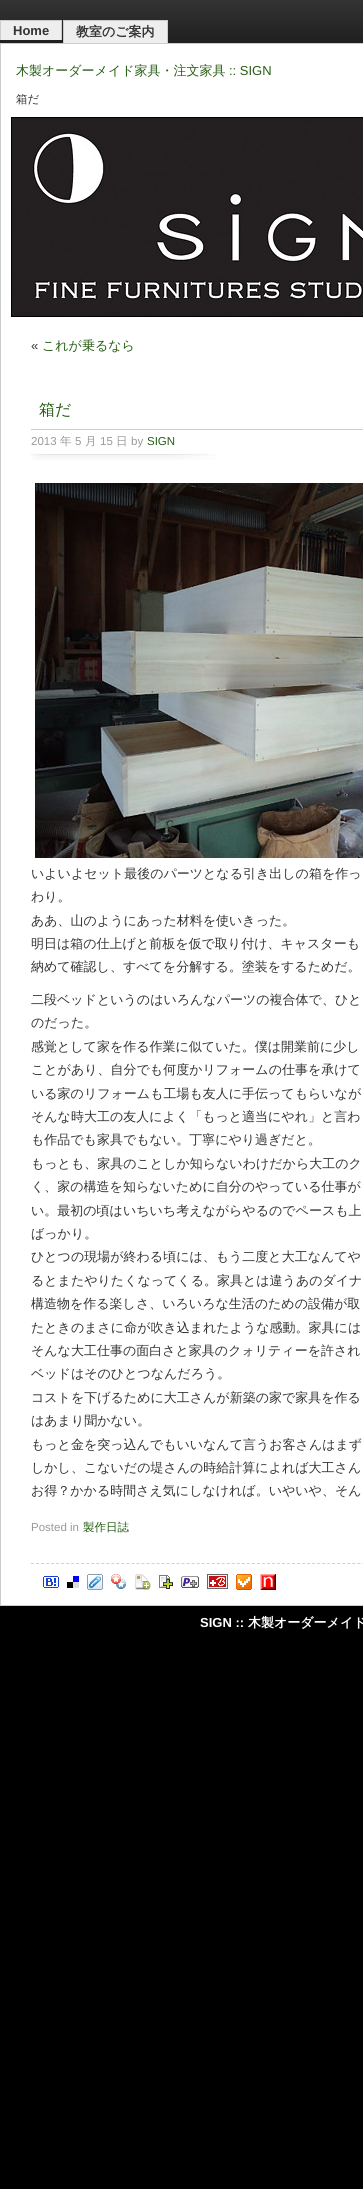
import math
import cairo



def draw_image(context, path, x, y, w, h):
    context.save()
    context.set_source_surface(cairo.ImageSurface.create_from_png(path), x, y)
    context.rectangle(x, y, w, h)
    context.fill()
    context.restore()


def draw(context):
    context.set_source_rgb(0, 0, 0)
    context.paint()
    draw_image(context, "images/1.png", 0, 0, 363, 43)
    context.set_source_rgb(238 / 255, 238 / 255, 238 / 255)
    context.rectangle(1, 21, 60, 19)
    context.fill()
    context.set_source_rgb(204 / 255, 204 / 255, 204 / 255)
    context.rectangle(0, 20, 62, 1)
    context.fill()
    context.rectangle(61, 20, 1, 20)
    context.fill()
    context.rectangle(0, 20, 1, 20)
    context.fill()
    context.set_source_rgb(238 / 255, 238 / 255, 238 / 255)
    context.rectangle(64, 21, 103, 22)
    context.fill()
    context.set_source_rgb(204 / 255, 204 / 255, 204 / 255)
    context.rectangle(63, 20, 105, 1)
    context.fill()
    context.rectangle(167, 20, 1, 23)
    context.fill()
    context.rectangle(63, 20, 1, 23)
    context.fill()
    context.set_source_rgb(1, 1, 1)
    context.rectangle(0.5, 43.5, 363, 1562)
    context.fill_preserve()
    context.set_source_rgb(204 / 255, 204 / 255, 204 / 255)
    context.set_line_width(1)
    context.stroke()
    draw_image(context, "images/2.png", 11, 117, 352, 200)
    context.new_path()
    context.move_to(31, 1563.5)
    context.line_to(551, 1563.5)
    context.set_source_rgb(221 / 255, 204 / 255, 204 / 255)
    context.set_dash([3, 2.02])
    context.stroke()
    context.set_source_rgb(204 / 255, 204 / 255, 204 / 255)
    context.rectangle(31, 429, 332, 1)
    context.fill()
    draw_image(context, "images/3.png", 31, 453, 184, 7)
    draw_image(context, "images/4.png", 35, 483, 328, 375)
    draw_image(context, "images/5.png", 43, 1576, 16, 12)
    draw_image(context, "images/6.png", 67, 1576, 12, 12)
    draw_image(context, "images/7.png", 87, 1574, 16, 16)
    draw_image(context, "images/8.png", 111, 1574, 15, 15)
    draw_image(context, "images/9.png", 135, 1574, 16, 16)
    draw_image(context, "images/10.png", 159, 1575, 14, 14)
    draw_image(context, "images/11.png", 181, 1576, 18, 12)
    draw_image(context, "images/12.png", 207, 1574, 21, 15)
    draw_image(context, "images/13.png", 236, 1574, 16, 16)
    draw_image(context, "images/14.png", 260, 1574, 16, 16)
    context.select_font_face("Liberation Sans", cairo.FontSlant.NORMAL, cairo.FontWeight.BOLD)
    context.set_font_size(13)
    context.set_source_rgb(51 / 255, 51 / 255, 51 / 255)
    context.move_to(13, 35)
    context.show_text("Home")
    context.select_font_face("WenQuanYi Zen Hei", cairo.FontSlant.NORMAL, cairo.FontWeight.BOLD)
    context.move_to(76, 36)
    context.show_text("教室のご案内")
    context.select_font_face("WenQuanYi Zen Hei Medium")
    context.set_source_rgb(38 / 255, 94 / 255, 21 / 255)
    context.move_to(16, 75)
    context.show_text("木製オーダーメイド家具・注文家具")
    context.select_font_face("Liberation Sans")
    context.move_to(229, 75)
    context.show_text(":: SIGN")
    context.select_font_face("WenQuanYi Zen Hei Medium")
    context.set_font_size(11.5)
    context.set_source_rgb(51 / 255, 51 / 255, 51 / 255)
    context.move_to(16, 103)
    context.show_text("箱だ")
    context.select_font_face("Liberation Sans")
    context.set_font_size(13)
    context.move_to(31, 350)
    context.show_text("«")
    context.select_font_face("WenQuanYi Zen Hei Medium")
    context.set_source_rgb(38 / 255, 94 / 255, 21 / 255)
    context.move_to(42, 350)
    context.show_text("これが乗るなら")
    context.set_font_size(16)
    context.move_to(39, 415)
    context.show_text("箱だ")
    context.select_font_face("Liberation Sans")
    context.set_font_size(11.5)
    context.set_source_rgb(153 / 255, 153 / 255, 153 / 255)
    context.move_to(31, 445)
    context.show_text("2013")
    context.select_font_face("WenQuanYi Zen Hei Medium")
    context.move_to(60, 445)
    context.show_text("年")
    context.select_font_face("Liberation Sans")
    context.move_to(75, 445)
    context.show_text("5")
    context.select_font_face("WenQuanYi Zen Hei Medium")
    context.move_to(85, 445)
    context.show_text("月")
    context.select_font_face("Liberation Sans")
    context.move_to(100, 445)
    context.show_text("15")
    context.select_font_face("WenQuanYi Zen Hei Medium")
    context.move_to(116, 445)
    context.show_text("日")
    context.select_font_face("Liberation Sans")
    context.move_to(131, 445)
    context.show_text("by")
    context.set_source_rgb(38 / 255, 94 / 255, 21 / 255)
    context.move_to(147, 445)
    context.show_text("SIGN")
    context.select_font_face("WenQuanYi Zen Hei Medium")
    context.set_font_size(13)
    context.set_source_rgb(51 / 255, 51 / 255, 51 / 255)
    context.move_to(31, 878)
    context.show_text("いよいよセット最後のパーツとなる引き出しの箱を作っ")
    context.move_to(31, 901)
    context.show_text("わり。")
    context.move_to(31, 925)
    context.show_text("ああ、山のようにあった材料を使いきった。")
    context.move_to(31, 948)
    context.show_text("明日は箱の仕上げと前板を仮で取り付け、キャスターも")
    context.move_to(31, 971)
    context.show_text("納めて確認し、すべてを分解する。塗装をするためだ。")
    context.move_to(31, 1004)
    context.show_text("二段ベッドというのはいろんなパーツの複合体で、ひと")
    context.move_to(31, 1027)
    context.show_text("のだった。")
    context.move_to(31, 1051)
    context.show_text("感覚として家を作る作業に似ていた。僕は開業前に少し")
    context.move_to(31, 1074)
    context.show_text("ことがあり、自分でも何度かリフォームの仕事を承けて")
    context.move_to(31, 1098)
    context.show_text("いる家のリフォームも工場も友人に手伝ってもらいなが")
    context.move_to(31, 1121)
    context.show_text("そんな時大工の友人によく「もっと適当にやれ」と言わ")
    context.move_to(31, 1144)
    context.show_text("も作品でも家具でもない。丁寧にやり過ぎだと。")
    context.move_to(31, 1168)
    context.show_text("もっとも、家具のことしか知らないわけだから大工のク")
    context.move_to(31, 1191)
    context.show_text("く、家の構造を知らないために自分のやっている仕事が")
    context.move_to(31, 1215)
    context.show_text("い。最初の頃はいちいち考えながらやるのでペースも上")
    context.move_to(31, 1238)
    context.show_text("ばっかり。")
    context.move_to(31, 1261)
    context.show_text("ひとつの現場が終わる頃には、もう二度と大工なんてや")
    context.move_to(31, 1285)
    context.show_text("るとまたやりたくなってくる。家具とは違うあのダイナ")
    context.move_to(31, 1308)
    context.show_text("構造物を作る楽しさ、いろいろな生活のための設備が取")
    context.move_to(31, 1332)
    context.show_text("たときのまさに命が吹き込まれたような感動。家具には")
    context.move_to(31, 1355)
    context.show_text("そんな大工仕事の面白さと家具のクォリティーを許され")
    context.move_to(31, 1378)
    context.show_text("ベッドはそのひとつなんだろう。")
    context.move_to(31, 1402)
    context.show_text("コストを下げるために大工さんが新築の家で家具を作る")
    context.move_to(31, 1425)
    context.show_text("はあまり聞かない。")
    context.move_to(31, 1449)
    context.show_text("もっと金を突っ込んでもいいなんて言うお客さんはまず")
    context.move_to(31, 1472)
    context.show_text("しかし、こないだの堤さんの時給計算によれば大工さん")
    context.move_to(31, 1495)
    context.show_text("お得？かかる時間さえ気にしなければ。いやいや、そん")
    context.select_font_face("Liberation Sans")
    context.set_font_size(11.5)
    context.set_source_rgb(153 / 255, 153 / 255, 153 / 255)
    context.move_to(31, 1531)
    context.show_text("Posted in")
    context.select_font_face("WenQuanYi Zen Hei Medium")
    context.set_source_rgb(38 / 255, 94 / 255, 21 / 255)
    context.move_to(83, 1531)
    context.show_text("製作日誌")
    context.select_font_face("Liberation Sans", cairo.FontSlant.NORMAL, cairo.FontWeight.BOLD)
    context.set_font_size(13)
    context.set_source_rgb(1, 1, 1)
    context.move_to(200, 1627)
    context.show_text("SIGN ::")
    context.select_font_face("WenQuanYi Zen Hei", cairo.FontSlant.NORMAL, cairo.FontWeight.BOLD)
    context.move_to(248, 1627)
    context.show_text("木製オーダーメイド")


surface = cairo.ImageSurface(cairo.Format.RGB24, 363, 2189)
context = cairo.Context(surface)
options = cairo.FontOptions()
options.set_hint_metrics(cairo.HintMetrics.OFF)
options.set_hint_style(cairo.HintStyle.NONE)
context.set_font_options(options)
context.set_miter_limit(4)
draw(context)
surface.write_to_png("out.png")
